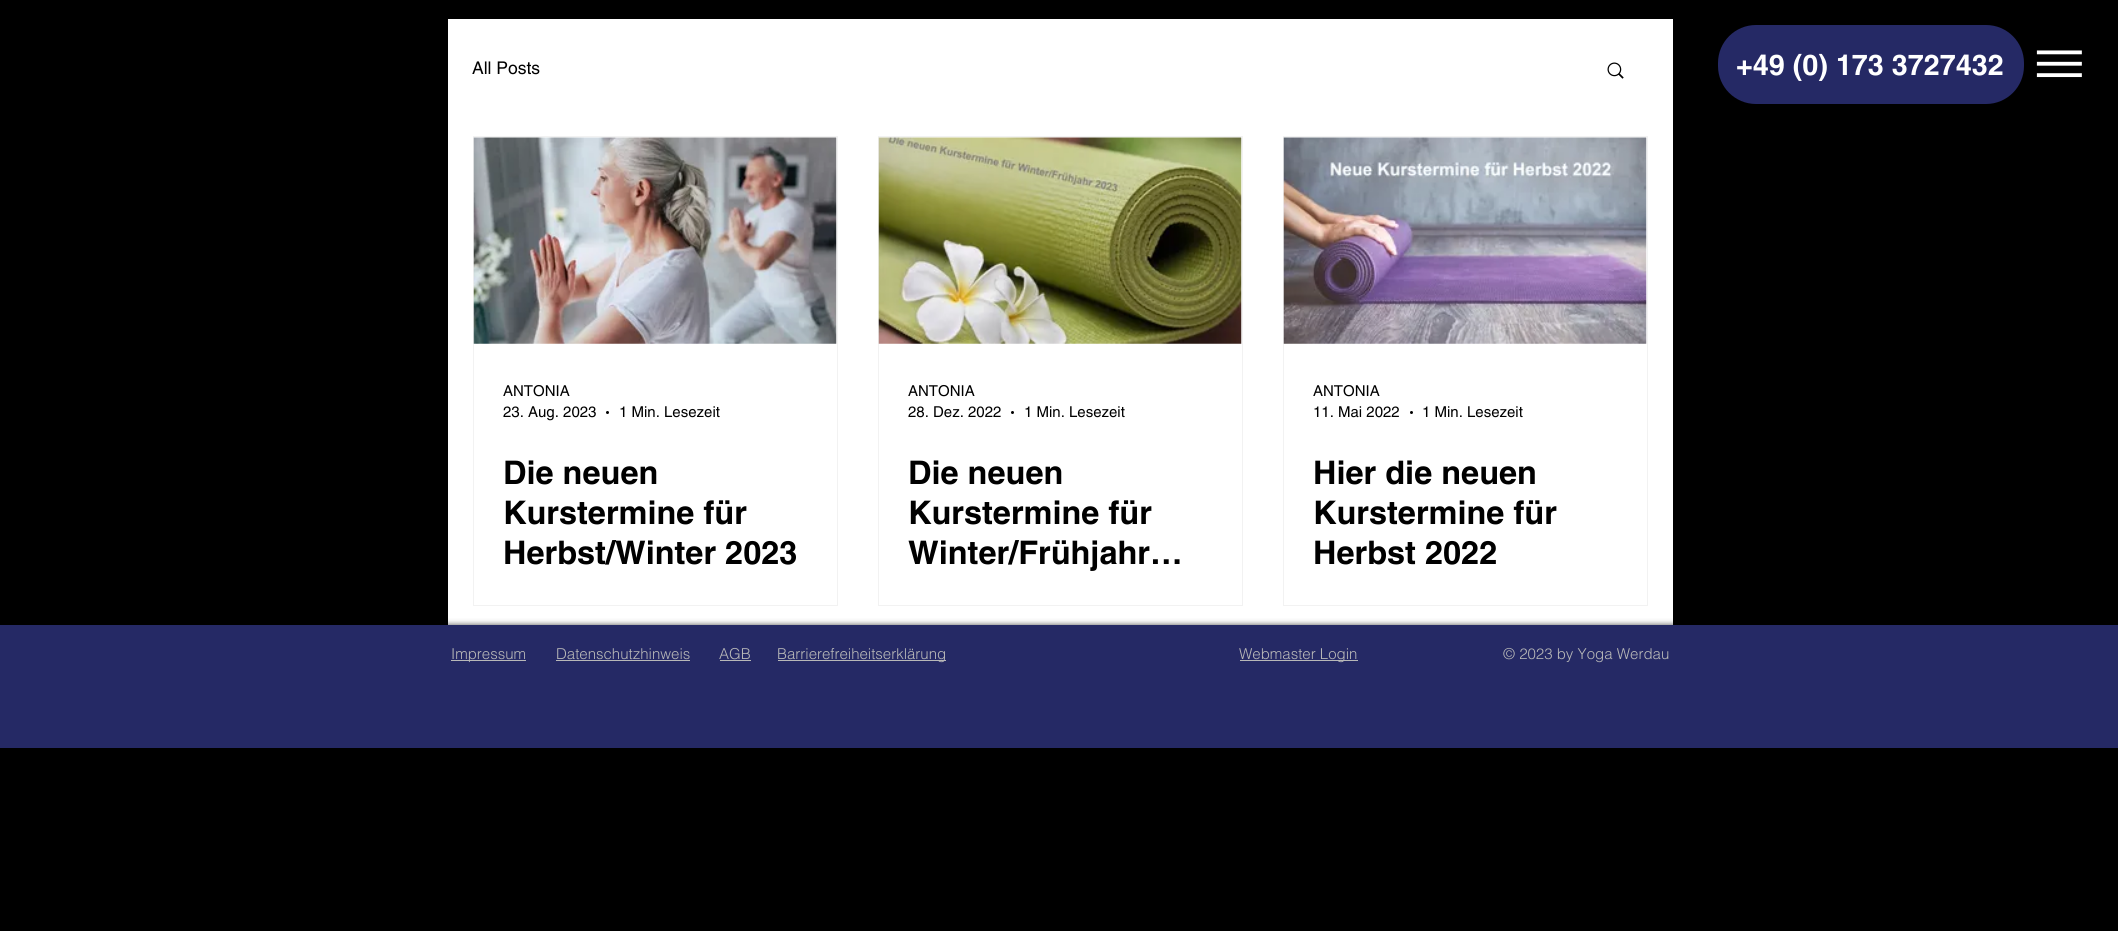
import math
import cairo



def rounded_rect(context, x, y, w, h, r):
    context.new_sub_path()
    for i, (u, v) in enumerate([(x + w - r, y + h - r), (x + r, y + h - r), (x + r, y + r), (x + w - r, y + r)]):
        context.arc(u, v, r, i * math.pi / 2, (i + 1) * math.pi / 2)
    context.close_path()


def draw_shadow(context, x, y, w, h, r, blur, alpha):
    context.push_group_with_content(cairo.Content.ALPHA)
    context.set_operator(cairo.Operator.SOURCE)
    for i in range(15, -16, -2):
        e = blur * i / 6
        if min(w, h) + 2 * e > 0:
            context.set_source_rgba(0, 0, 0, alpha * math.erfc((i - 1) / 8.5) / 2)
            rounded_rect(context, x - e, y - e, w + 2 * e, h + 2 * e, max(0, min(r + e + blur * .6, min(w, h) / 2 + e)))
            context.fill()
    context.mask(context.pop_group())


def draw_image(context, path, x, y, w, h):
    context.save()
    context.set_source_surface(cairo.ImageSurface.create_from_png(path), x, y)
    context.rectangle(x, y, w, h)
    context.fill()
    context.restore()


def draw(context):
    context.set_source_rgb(0, 0, 0)
    context.paint()
    context.set_source_rgb(1, 1, 1)
    context.rectangle(448, 19, 1225, 606)
    context.fill()
    draw_image(context, "images/1.png", 1607, 62, 17, 17)
    context.rectangle(473.5, 136.5, 364, 469)
    context.set_source_rgb(242 / 255, 242 / 255, 242 / 255)
    context.set_line_width(1)
    context.stroke()
    draw_image(context, "images/2.png", 473, 137, 364, 207)
    context.set_source_rgb(0, 0, 0)
    context.arc(607.5, 412.5, 1.5, 0, 2 * math.pi)
    context.fill()
    context.rectangle(878.5, 136.5, 364, 469)
    context.set_source_rgb(242 / 255, 242 / 255, 242 / 255)
    context.stroke()
    draw_image(context, "images/3.png", 878, 137, 364, 207)
    context.set_source_rgb(0, 0, 0)
    context.arc(1012.5, 412.5, 1.5, 0, 2 * math.pi)
    context.fill()
    context.rectangle(1283.5, 136.5, 364, 469)
    context.set_source_rgb(242 / 255, 242 / 255, 242 / 255)
    context.stroke()
    draw_image(context, "images/4.png", 1283, 137, 364, 207)
    context.set_source_rgb(0, 0, 0)
    context.arc(1411.5, 412.5, 1.5, 0, 2 * math.pi)
    context.fill()
    context.set_source_rgb(37 / 255, 41 / 255, 101 / 255)
    rounded_rect(context, 1718, 25, 306, 79, 38)
    context.fill()
    draw_image(context, "images/5.png", 2036, 50, 46, 28)
    context.set_source_rgb(0, 0, 0)
    draw_shadow(context, 0, 625, 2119, 123, 0, 3, 0.7)
    context.set_source_rgb(37 / 255, 41 / 255, 101 / 255)
    context.rectangle(0, 625, 2118, 123)
    context.fill()
    context.set_source_rgb(184 / 255, 184 / 255, 184 / 255)
    context.rectangle(451, 660, 75, 1)
    context.fill()
    context.rectangle(556, 660, 134, 1)
    context.fill()
    context.rectangle(720, 660, 31, 1)
    context.fill()
    context.rectangle(778, 660, 168, 1)
    context.fill()
    context.rectangle(1240, 660, 118, 1)
    context.fill()
    context.select_font_face("helvetica")
    context.set_font_size(17.5)
    context.set_source_rgb(0, 0, 0)
    context.move_to(472, 74)
    context.show_text("All Posts")
    context.set_font_size(15)
    context.move_to(503, 396)
    context.show_text("ANTONIA")
    context.move_to(503, 417)
    context.show_text("23. Aug. 2023")
    context.move_to(619, 417)
    context.show_text("1 Min. Lesezeit")
    context.select_font_face("helvetica", cairo.FontSlant.NORMAL, cairo.FontWeight.BOLD)
    context.set_font_size(32.5)
    context.move_to(503, 484)
    context.show_text("Die neuen")
    context.move_to(503, 524)
    context.show_text("Kurstermine für")
    context.move_to(503, 564)
    context.show_text("Herbst/Winter 2023")
    context.select_font_face("helvetica")
    context.set_font_size(15)
    context.move_to(908, 396)
    context.show_text("ANTONIA")
    context.move_to(908, 417)
    context.show_text("28. Dez. 2022")
    context.move_to(1024, 417)
    context.show_text("1 Min. Lesezeit")
    context.select_font_face("helvetica", cairo.FontSlant.NORMAL, cairo.FontWeight.BOLD)
    context.set_font_size(32.5)
    context.move_to(908, 484)
    context.show_text("Die neuen")
    context.move_to(908, 524)
    context.show_text("Kurstermine für")
    context.move_to(908, 564)
    context.show_text("Winter/Frühjahr…")
    context.select_font_face("helvetica")
    context.set_font_size(15)
    context.move_to(1313, 396)
    context.show_text("ANTONIA")
    context.move_to(1313, 417)
    context.show_text("11. Mai 2022")
    context.move_to(1422, 417)
    context.show_text("1 Min. Lesezeit")
    context.select_font_face("helvetica", cairo.FontSlant.NORMAL, cairo.FontWeight.BOLD)
    context.set_font_size(32.5)
    context.move_to(1313, 484)
    context.show_text("Hier die neuen")
    context.move_to(1313, 524)
    context.show_text("Kurstermine für")
    context.move_to(1313, 564)
    context.show_text("Herbst 2022")
    context.set_font_size(28.75)
    context.set_source_rgb(1, 1, 1)
    context.move_to(1736, 75)
    context.show_text("+49 (0) 173 3727432")
    context.select_font_face("helvetica Light")
    context.set_font_size(15)
    context.set_source_rgb(184 / 255, 184 / 255, 184 / 255)
    context.move_to(451, 659)
    context.show_text("Impressum")
    context.move_to(556, 659)
    context.show_text("Datenschutzhinweis")
    context.move_to(719, 659)
    context.show_text("AGB")
    context.move_to(777, 659)
    context.show_text("Barrierefreiheitserklärung")
    context.move_to(1239, 659)
    context.show_text("Webmaster Login")
    context.move_to(1503, 659)
    context.show_text("© 2023 by Yoga Werdau")


surface = cairo.ImageSurface(cairo.Format.RGB24, 2118, 931)
context = cairo.Context(surface)
options = cairo.FontOptions()
options.set_hint_metrics(cairo.HintMetrics.OFF)
options.set_hint_style(cairo.HintStyle.NONE)
context.set_font_options(options)
context.set_miter_limit(4)
draw(context)
surface.write_to_png("out.png")
